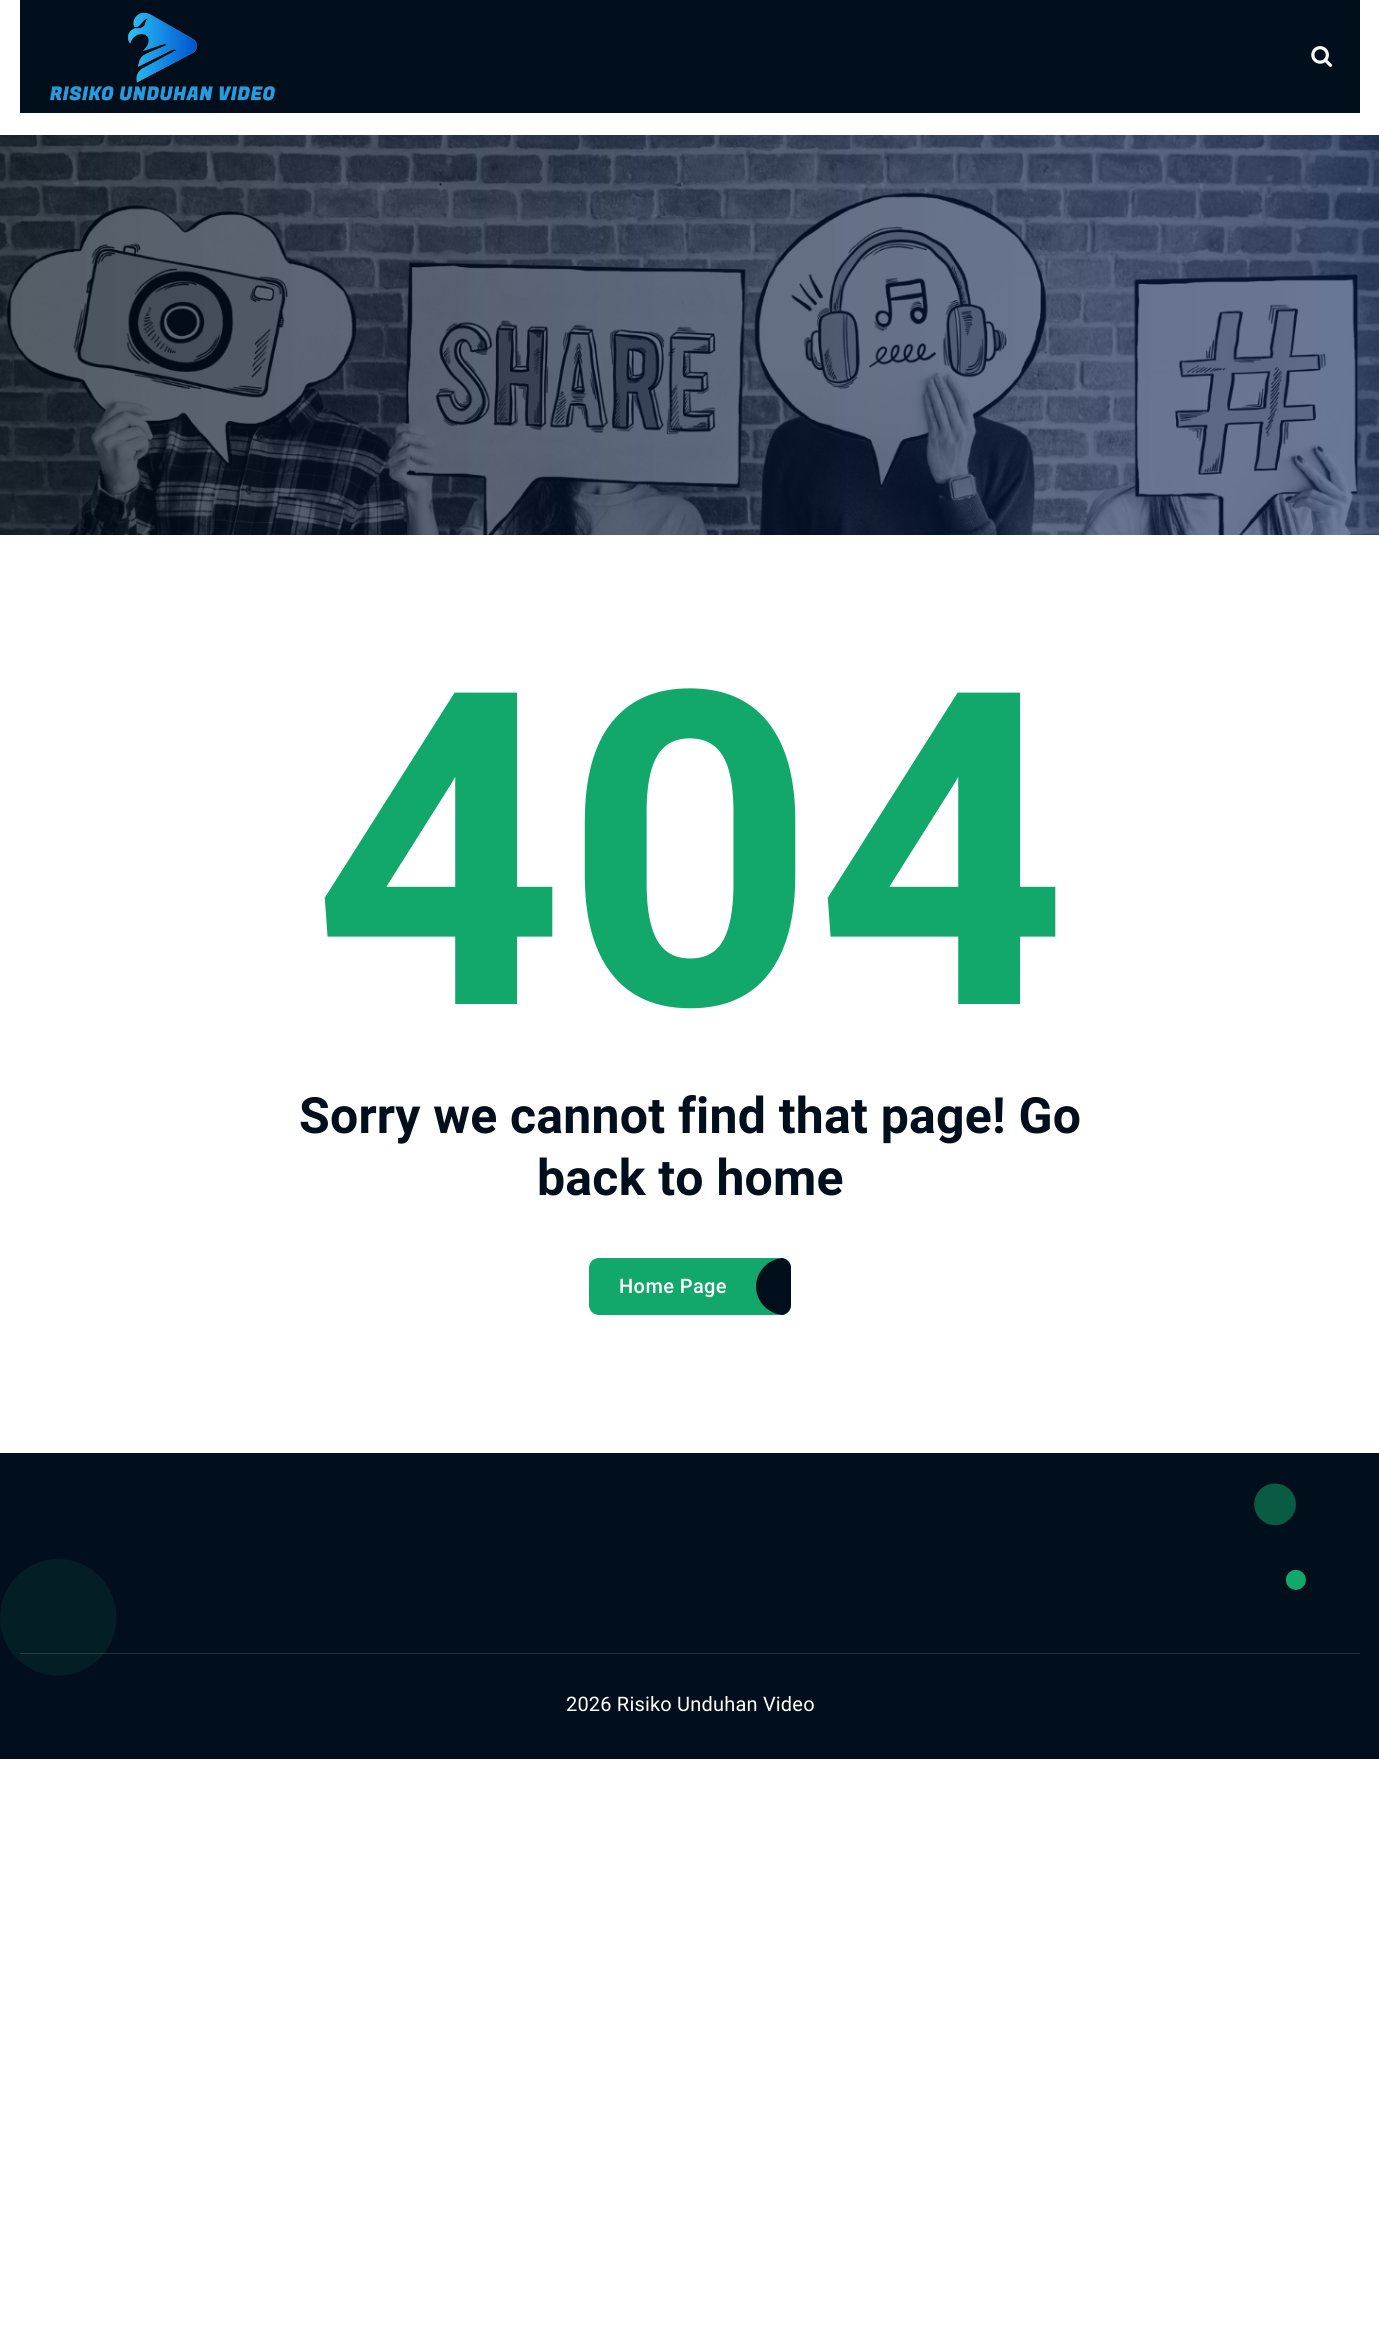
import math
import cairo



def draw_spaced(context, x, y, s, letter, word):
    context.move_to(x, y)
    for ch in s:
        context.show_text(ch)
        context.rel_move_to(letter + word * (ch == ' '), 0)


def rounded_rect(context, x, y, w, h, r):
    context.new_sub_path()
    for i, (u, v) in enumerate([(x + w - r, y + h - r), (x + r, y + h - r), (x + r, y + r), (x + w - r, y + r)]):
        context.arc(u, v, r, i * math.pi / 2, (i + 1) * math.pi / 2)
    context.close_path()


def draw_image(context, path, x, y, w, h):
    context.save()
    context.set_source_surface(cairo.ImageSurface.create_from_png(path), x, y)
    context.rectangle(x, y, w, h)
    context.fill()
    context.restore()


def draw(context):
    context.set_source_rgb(1, 1, 1)
    context.paint()
    context.set_source_rgb(1 / 255, 15 / 255, 28 / 255)
    context.rectangle(20, 0, 1340, 113)
    context.fill()
    draw_image(context, "images/1.png", 50, 12, 225, 89)
    draw_image(context, "images/2.png", 1311, 46, 22, 21)
    draw_image(context, "images/3.png", 0, 135, 1379, 400)
    context.set_source_rgb(18 / 255, 168 / 255, 107 / 255)
    rounded_rect(context, 589, 1258, 202, 57, 10)
    context.fill()
    context.set_source_rgb(1 / 255, 15 / 255, 28 / 255)
    context.new_path()
    context.move_to(784.5, 1258)
    context.line_to(781, 1258)
    context.curve_to(786.5, 1258, 791, 1262.5, 791, 1268)
    context.line_to(791, 1305)
    context.curve_to(791, 1310.5, 786.5, 1315, 781, 1315)
    context.line_to(784.5, 1315)
    context.curve_to(769, 1315, 756, 1302, 756, 1286.5)
    context.curve_to(756, 1271, 769, 1258, 784.5, 1258)
    context.close_path()
    context.fill()
    context.rectangle(0, 1453, 1379, 306)
    context.fill()
    draw_image(context, "images/4.png", 0, 1483, 1306, 193)
    context.set_source_rgba(189 / 255, 189 / 255, 189 / 255, 0.2)
    context.rectangle(20, 1653, 1340, 1)
    context.fill()
    context.select_font_face("Roboto", cairo.FontSlant.NORMAL, cairo.FontWeight.BOLD)
    context.set_font_size(438)
    context.set_source_rgb(18 / 255, 168 / 255, 107 / 255)
    draw_spaced(context, 313, 1004, "404", 0.2, 0)
    context.set_font_size(50)
    context.set_source_rgb(1 / 255, 15 / 255, 28 / 255)
    draw_spaced(context, 299, 1133, "Sorry we cannot find that page! Go", 0.2, 0)
    draw_spaced(context, 537, 1195, "back to home", 0.2, 0)
    context.select_font_face("Roboto Medium")
    context.set_font_size(20)
    context.set_source_rgb(1, 1, 1)
    draw_spaced(context, 619, 1293, "Home Page", 0.4, 0)
    context.select_font_face("Roboto")
    draw_spaced(context, 566, 1711, "2026 Risiko Unduhan Video", 0.2, 0)


surface = cairo.ImageSurface(cairo.Format.RGB24, 1379, 2334)
context = cairo.Context(surface)
options = cairo.FontOptions()
options.set_hint_metrics(cairo.HintMetrics.OFF)
options.set_hint_style(cairo.HintStyle.NONE)
context.set_font_options(options)
context.set_miter_limit(4)
draw(context)
surface.write_to_png("out.png")
